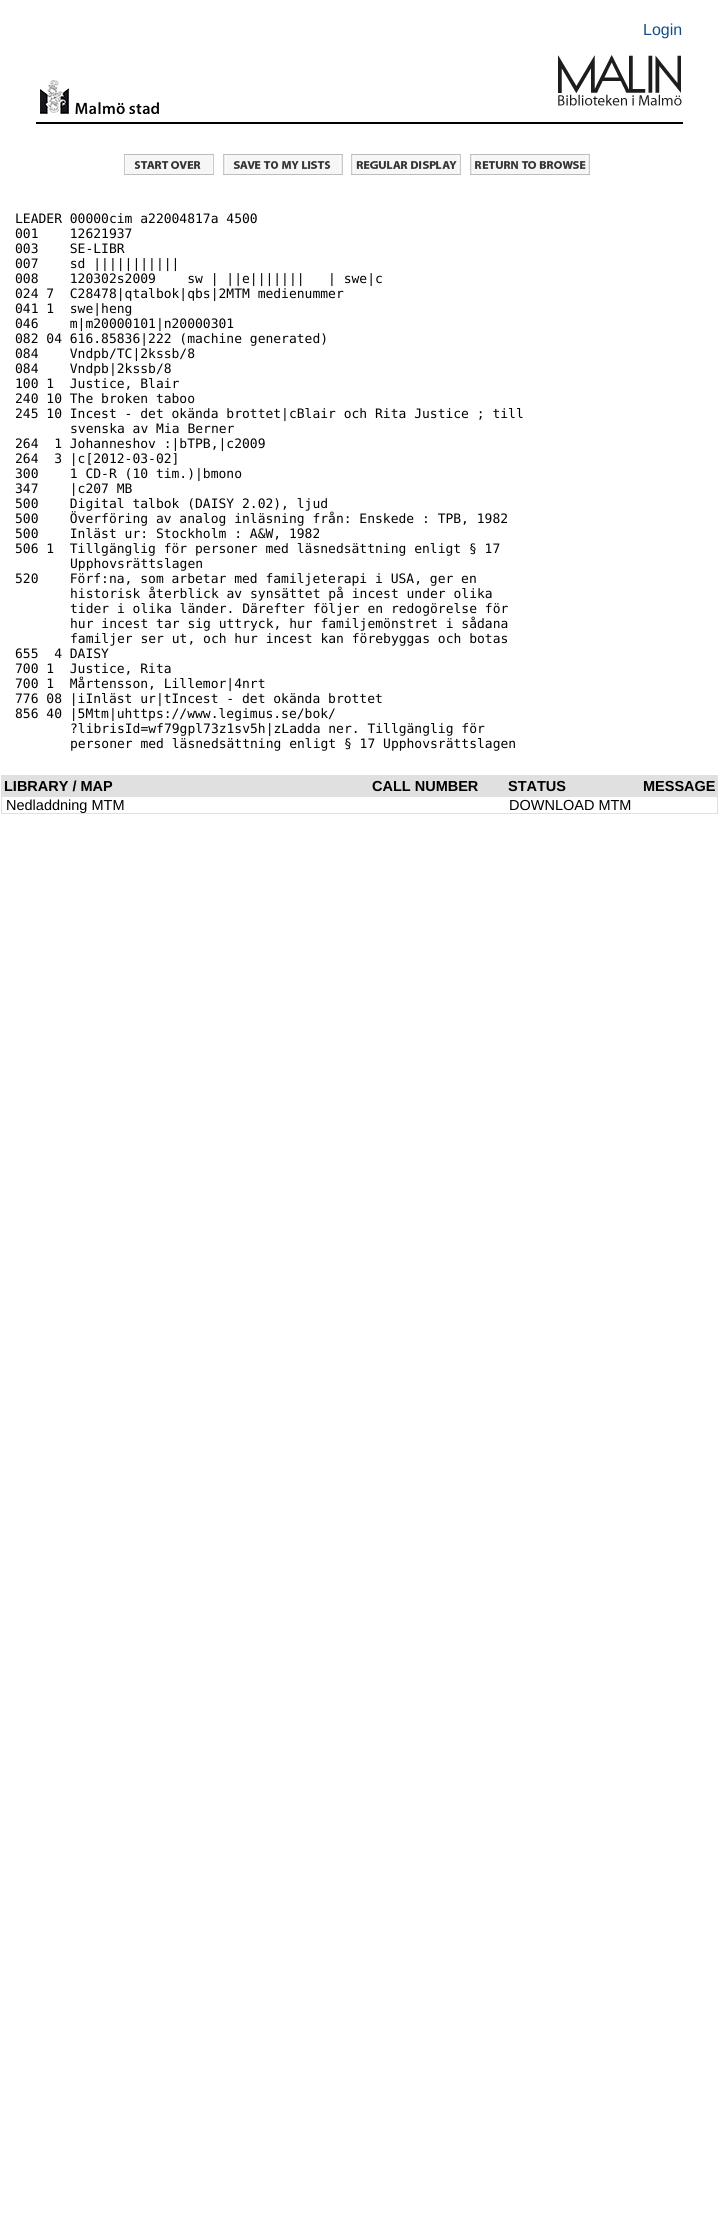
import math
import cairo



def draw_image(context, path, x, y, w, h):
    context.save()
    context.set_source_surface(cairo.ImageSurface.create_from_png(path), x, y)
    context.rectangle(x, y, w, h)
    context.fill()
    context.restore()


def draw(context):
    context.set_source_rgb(1, 1, 1)
    context.paint()
    draw_image(context, "images/1.png", 40, 80, 119, 34)
    draw_image(context, "images/2.png", 558, 55, 124, 51)
    context.set_source_rgb(0, 0, 0)
    context.rectangle(36, 122, 647, 2)
    context.fill()
    draw_image(context, "images/3.png", 124, 154, 90, 21)
    draw_image(context, "images/4.png", 223, 154, 120, 21)
    draw_image(context, "images/5.png", 351, 154, 110, 21)
    draw_image(context, "images/6.png", 470, 154, 120, 21)
    context.set_source_rgb(224 / 255, 224 / 255, 224 / 255)
    context.rectangle(2, 776, 715, 20)
    context.fill()
    context.rectangle(1, 775, 717, 1)
    context.fill()
    context.rectangle(1, 796, 717, 1)
    context.fill()
    context.rectangle(717, 796, 1, 18)
    context.fill()
    context.rectangle(1, 813, 717, 1)
    context.fill()
    context.rectangle(1, 796, 1, 18)
    context.fill()
    context.rectangle(1, 775, 1, 22)
    context.fill()
    context.rectangle(717, 775, 1, 22)
    context.fill()
    context.select_font_face("Liberation Sans")
    context.set_font_size(16)
    context.set_source_rgb(17 / 255, 79 / 255, 140 / 255)
    context.move_to(643, 35)
    context.show_text("Login")
    context.select_font_face("DejaVu Sans Mono")
    context.set_font_size(13)
    context.set_source_rgb(0, 0, 0)
    context.move_to(15, 223)
    context.show_text("LEADER 00000cim a22004817a 4500")
    context.move_to(15, 238)
    context.show_text("001    12621937")
    context.move_to(15, 253)
    context.show_text("003    SE-LIBR")
    context.move_to(15, 268)
    context.show_text("007    sd |||||||||||")
    context.move_to(15, 283)
    context.show_text("008    120302s2009    sw | ||e|||||||   | swe|c")
    context.move_to(15, 298)
    context.show_text("024 7  C28478|qtalbok|qbs|2MTM medienummer")
    context.move_to(15, 313)
    context.show_text("041 1  swe|heng")
    context.move_to(15, 328)
    context.show_text("046    m|m20000101|n20000301")
    context.move_to(15, 343)
    context.show_text("082 04 616.85836|222 (machine generated)")
    context.move_to(15, 358)
    context.show_text("084    Vndpb/TC|2kssb/8")
    context.move_to(15, 373)
    context.show_text("084    Vndpb|2kssb/8")
    context.move_to(15, 388)
    context.show_text("100 1  Justice, Blair")
    context.move_to(15, 403)
    context.show_text("240 10 The broken taboo")
    context.move_to(15, 418)
    context.show_text("245 10 Incest - det okända brottet|cBlair och Rita Justice ; till")
    context.move_to(70, 433)
    context.show_text("svenska av Mia Berner")
    context.move_to(15, 448)
    context.show_text("264  1 Johanneshov :|bTPB,|c2009")
    context.move_to(15, 463)
    context.show_text("264  3 |c[2012-03-02]")
    context.move_to(15, 478)
    context.show_text("300    1 CD-R (10 tim.)|bmono")
    context.move_to(15, 493)
    context.show_text("347    |c207 MB")
    context.move_to(15, 508)
    context.show_text("500    Digital talbok (DAISY 2.02), ljud")
    context.move_to(15, 523)
    context.show_text("500    Överföring av analog inläsning från: Enskede : TPB, 1982")
    context.move_to(15, 538)
    context.show_text("500    Inläst ur: Stockholm : A&W, 1982")
    context.move_to(15, 553)
    context.show_text("506 1  Tillgänglig för personer med läsnedsättning enligt § 17")
    context.move_to(70, 568)
    context.show_text("Upphovsrättslagen")
    context.move_to(15, 583)
    context.show_text("520    Förf:na, som arbetar med familjeterapi i USA, ger en")
    context.move_to(70, 598)
    context.show_text("historisk återblick av synsättet på incest under olika")
    context.move_to(70, 613)
    context.show_text("tider i olika länder. Därefter följer en redogörelse för")
    context.move_to(70, 628)
    context.show_text("hur incest tar sig uttryck, hur familjemönstret i sådana")
    context.move_to(70, 643)
    context.show_text("familjer ser ut, och hur incest kan förebyggas och botas")
    context.move_to(15, 658)
    context.show_text("655  4 DAISY")
    context.move_to(15, 673)
    context.show_text("700 1  Justice, Rita")
    context.move_to(15, 688)
    context.show_text("700 1  Mårtensson, Lillemor|4nrt")
    context.move_to(15, 703)
    context.show_text("776 08 |iInläst ur|tIncest - det okända brottet")
    context.move_to(15, 718)
    context.show_text("856 40 |5Mtm|uhttps://www.legimus.se/bok/")
    context.move_to(70, 733)
    context.show_text("?librisId=wf79gpl73z1sv5h|zLadda ner. Tillgänglig för")
    context.move_to(70, 748)
    context.show_text("personer med läsnedsättning enligt § 17 Upphovsrättslagen")
    context.select_font_face("Liberation Sans", cairo.FontSlant.NORMAL, cairo.FontWeight.BOLD)
    context.set_font_size(14.5)
    context.move_to(4, 791)
    context.show_text("LIBRARY / MAP")
    context.move_to(372, 791)
    context.show_text("CALL NUMBER")
    context.move_to(508, 791)
    context.show_text("STATUS")
    context.move_to(643, 791)
    context.show_text("MESSAGE")
    context.select_font_face("Liberation Sans")
    context.move_to(6, 810)
    context.show_text("Nedladdning MTM")
    context.move_to(509, 810)
    context.show_text("DOWNLOAD MTM")


surface = cairo.ImageSurface(cairo.Format.RGB24, 719, 2229)
context = cairo.Context(surface)
options = cairo.FontOptions()
options.set_hint_metrics(cairo.HintMetrics.OFF)
options.set_hint_style(cairo.HintStyle.NONE)
context.set_font_options(options)
context.set_miter_limit(4)
draw(context)
surface.write_to_png("out.png")
